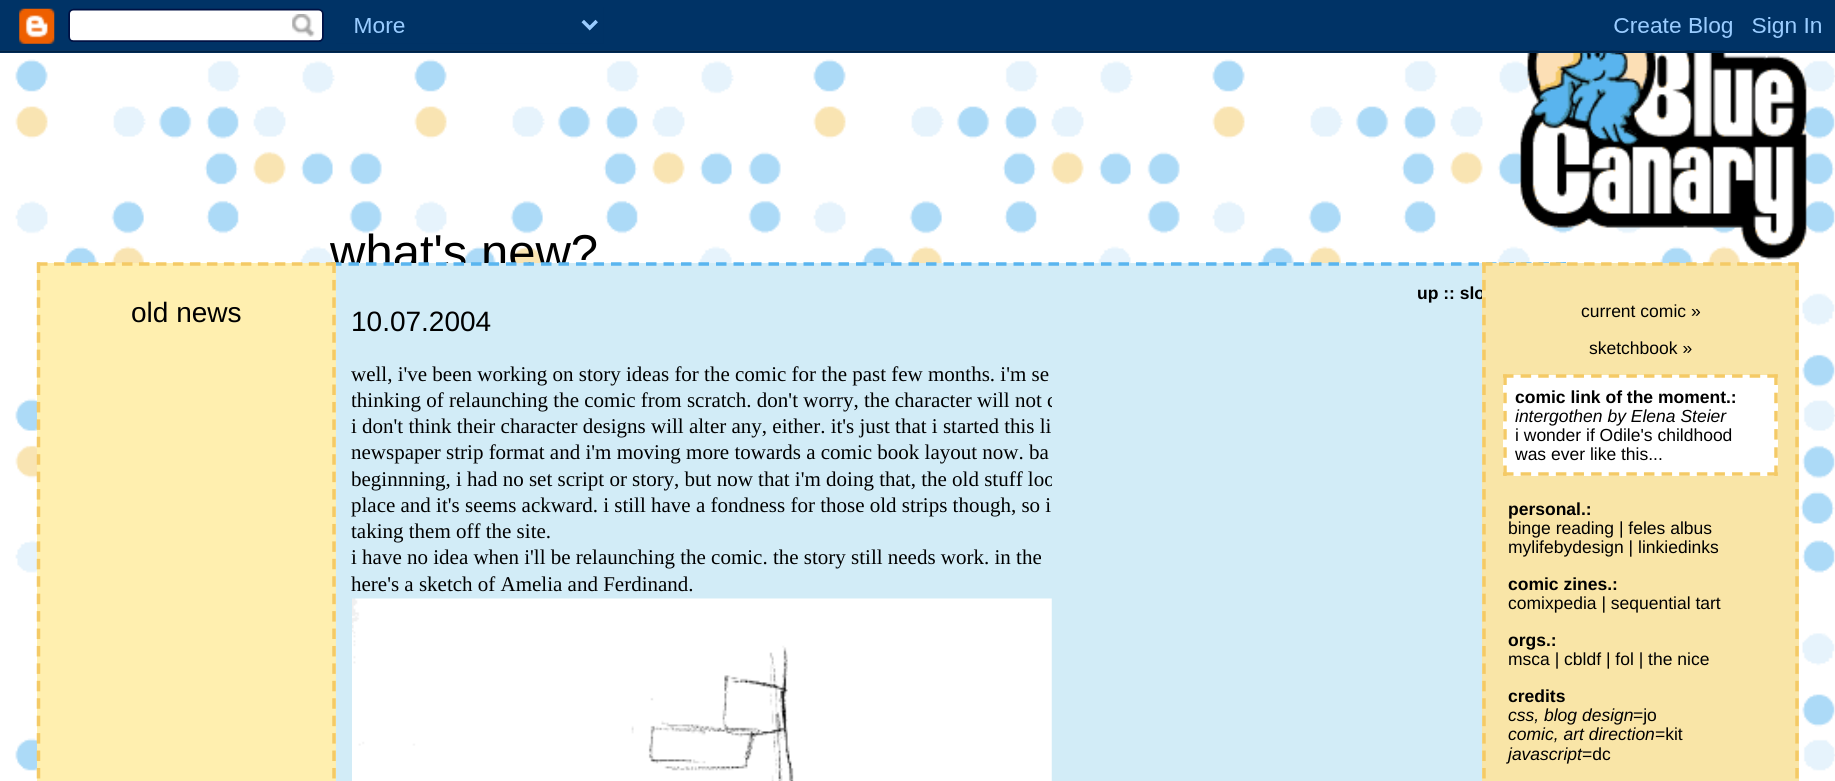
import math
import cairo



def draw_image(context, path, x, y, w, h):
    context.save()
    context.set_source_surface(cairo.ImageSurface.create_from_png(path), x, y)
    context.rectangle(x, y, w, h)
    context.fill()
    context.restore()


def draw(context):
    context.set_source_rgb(1, 1, 1)
    context.paint()
    draw_image(context, "images/1.png", 15, 50, 1820, 722)
    draw_image(context, "images/3.png", 1520, 50, 287, 210)
    draw_image(context, "images/2.png", 0, 0, 1835, 53)
    context.select_font_face("Liberation Sans")
    context.set_font_size(49)
    context.set_source_rgb(0, 0, 0)
    context.move_to(330, 269)
    context.show_text("what's new?")
    context.set_source_rgb(210 / 255, 236 / 255, 247 / 255)
    context.rectangle(336, 263, 1146, 518)
    context.fill()
    context.new_path()
    context.move_to(331, 264)
    context.line_to(1566, 264)
    context.set_source_rgb(89 / 255, 181 / 255, 239 / 255)
    context.set_line_width(3.5)
    context.set_dash([10.5, 7])
    context.stroke()
    context.new_path()
    context.move_to(1564.5, 262.5)
    context.line_to(1564.5, 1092)
    context.set_dash([10.5, 6.93])
    context.stroke()
    context.new_path()
    context.move_to(332.5, 262.5)
    context.line_to(332.5, 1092)
    context.stroke()
    context.set_source_rgb(1, 239 / 255, 175 / 255)
    context.rectangle(37, 263, 299, 518)
    context.fill()
    context.set_font_size(28)
    context.set_source_rgb(0, 0, 0)
    context.move_to(131, 322)
    context.show_text("old news")
    context.new_path()
    context.move_to(37, 264)
    context.line_to(336, 264)
    context.set_source_rgb(244 / 255, 202 / 255, 102 / 255)
    context.set_dash([10.5, 6.49])
    context.stroke()
    context.new_path()
    context.move_to(38.5, 262.5)
    context.line_to(38.5, 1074.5)
    context.set_dash([10.5, 6.93])
    context.stroke()
    context.new_path()
    context.move_to(334, 262.5)
    context.line_to(334, 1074.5)
    context.stroke()
    context.select_font_face("Liberation Sans", cairo.FontSlant.NORMAL, cairo.FontWeight.BOLD)
    context.set_font_size(17.5)
    context.set_source_rgb(0, 0, 0)
    context.move_to(1417, 299)
    context.show_text("up :: slo")
    context.select_font_face("Liberation Sans")
    context.set_font_size(28)
    context.move_to(351, 331)
    context.show_text("10.07.2004")
    context.select_font_face("Liberation Serif")
    context.set_font_size(21)
    context.move_to(351, 381)
    context.show_text("well, i've been working on story ideas for the comic for the past few months. i'm se")
    context.save()
    context.rectangle(352, 284, 700, 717)
    context.clip()
    context.move_to(351, 407)
    context.show_text("thinking of relaunching the comic from scratch. don't worry, the character will not c")
    context.restore()
    context.move_to(351, 433)
    context.show_text("i don't think their character designs will alter any, either. it's just that i started this li")
    context.move_to(351, 459)
    context.show_text("newspaper strip format and i'm moving more towards a comic book layout now. ba")
    context.save()
    context.rectangle(352, 284, 700, 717)
    context.clip()
    context.move_to(351, 486)
    context.show_text("beginnning, i had no set script or story, but now that i'm doing that, the old stuff loo")
    context.restore()
    context.move_to(351, 512)
    context.show_text("place and it's seems ackward. i still have a fondness for those old strips though, so i")
    context.move_to(351, 538)
    context.show_text("taking them off the site.")
    context.move_to(351, 564)
    context.show_text("i have no idea when i'll be relaunching the comic. the story still needs work. in the")
    context.move_to(351, 591)
    context.show_text("here's a sketch of Amelia and Ferdinand.")
    draw_image(context, "images/4.png", 352, 598, 700, 183)
    context.set_source_rgb(249 / 255, 229 / 255, 167 / 255)
    context.rectangle(1482, 263, 317, 518)
    context.fill()
    context.new_path()
    context.move_to(1482, 264)
    context.line_to(1799, 264)
    context.set_source_rgb(244 / 255, 202 / 255, 102 / 255)
    context.set_dash([10.5, 6.51])
    context.stroke()
    context.new_path()
    context.move_to(1797, 262.5)
    context.line_to(1797, 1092)
    context.set_dash([10.5, 6.93])
    context.stroke()
    context.new_path()
    context.move_to(1484, 262.5)
    context.line_to(1484, 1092)
    context.stroke()
    context.select_font_face("Liberation Sans")
    context.set_font_size(17.5)
    context.set_source_rgb(0, 0, 0)
    context.move_to(1581, 317)
    context.show_text("current comic »")
    context.move_to(1589, 354)
    context.show_text("sketchbook »")
    context.set_source_rgb(1, 1, 1)
    context.rectangle(1503, 375, 275, 101)
    context.fill()
    context.new_path()
    context.move_to(1503, 376)
    context.line_to(1778, 376)
    context.set_source_rgb(244 / 255, 202 / 255, 102 / 255)
    context.set_dash([10.5, 7.12])
    context.stroke()
    context.new_path()
    context.move_to(1776, 374.5)
    context.line_to(1776, 476)
    context.set_dash([10.5, 7.7])
    context.stroke()
    context.new_path()
    context.move_to(1503, 474)
    context.line_to(1778, 474)
    context.set_dash([10.5, 7.12])
    context.stroke()
    context.new_path()
    context.move_to(1505, 374.5)
    context.line_to(1505, 476)
    context.set_dash([10.5, 7.7])
    context.stroke()
    context.select_font_face("Liberation Sans", cairo.FontSlant.NORMAL, cairo.FontWeight.BOLD)
    context.set_source_rgb(0, 0, 0)
    context.move_to(1515, 403)
    context.show_text("comic link of the moment.:")
    context.select_font_face("Liberation Sans", cairo.FontSlant.ITALIC)
    context.move_to(1515, 422)
    context.show_text("intergothen by Elena Steier")
    context.select_font_face("Liberation Sans")
    context.move_to(1515, 441)
    context.show_text("i wonder if Odile's childhood")
    context.move_to(1515, 460)
    context.show_text("was ever like this...")
    context.select_font_face("Liberation Sans", cairo.FontSlant.NORMAL, cairo.FontWeight.BOLD)
    context.move_to(1508, 515)
    context.show_text("personal.:")
    context.select_font_face("Liberation Sans")
    context.move_to(1508, 534)
    context.show_text("binge reading | feles albus")
    context.move_to(1508, 553)
    context.show_text("mylifebydesign | linkiedinks")
    context.select_font_face("Liberation Sans", cairo.FontSlant.NORMAL, cairo.FontWeight.BOLD)
    context.move_to(1508, 590)
    context.show_text("comic zines.:")
    context.select_font_face("Liberation Sans")
    context.move_to(1508, 609)
    context.show_text("comixpedia | sequential tart")
    context.select_font_face("Liberation Sans", cairo.FontSlant.NORMAL, cairo.FontWeight.BOLD)
    context.move_to(1508, 646)
    context.show_text("orgs.:")
    context.select_font_face("Liberation Sans")
    context.move_to(1508, 665)
    context.show_text("msca | cbldf | fol | the nice")
    context.select_font_face("Liberation Sans", cairo.FontSlant.NORMAL, cairo.FontWeight.BOLD)
    context.move_to(1508, 702)
    context.show_text("credits")
    context.select_font_face("Liberation Sans", cairo.FontSlant.ITALIC)
    context.move_to(1508, 721)
    context.show_text("css, blog design")
    context.select_font_face("Liberation Sans")
    context.move_to(1633, 721)
    context.show_text("=jo")
    context.select_font_face("Liberation Sans", cairo.FontSlant.ITALIC)
    context.move_to(1508, 740)
    context.show_text("comic, art direction")
    context.select_font_face("Liberation Sans")
    context.move_to(1655, 740)
    context.show_text("=kit")
    context.select_font_face("Liberation Sans", cairo.FontSlant.ITALIC)
    context.move_to(1508, 760)
    context.show_text("javascript")
    context.select_font_face("Liberation Sans")
    context.move_to(1582, 760)
    context.show_text("=dc")


surface = cairo.ImageSurface(cairo.Format.RGB24, 1835, 781)
context = cairo.Context(surface)
options = cairo.FontOptions()
options.set_hint_metrics(cairo.HintMetrics.OFF)
options.set_hint_style(cairo.HintStyle.NONE)
context.set_font_options(options)
context.set_miter_limit(4)
draw(context)
surface.write_to_png("out.png")
